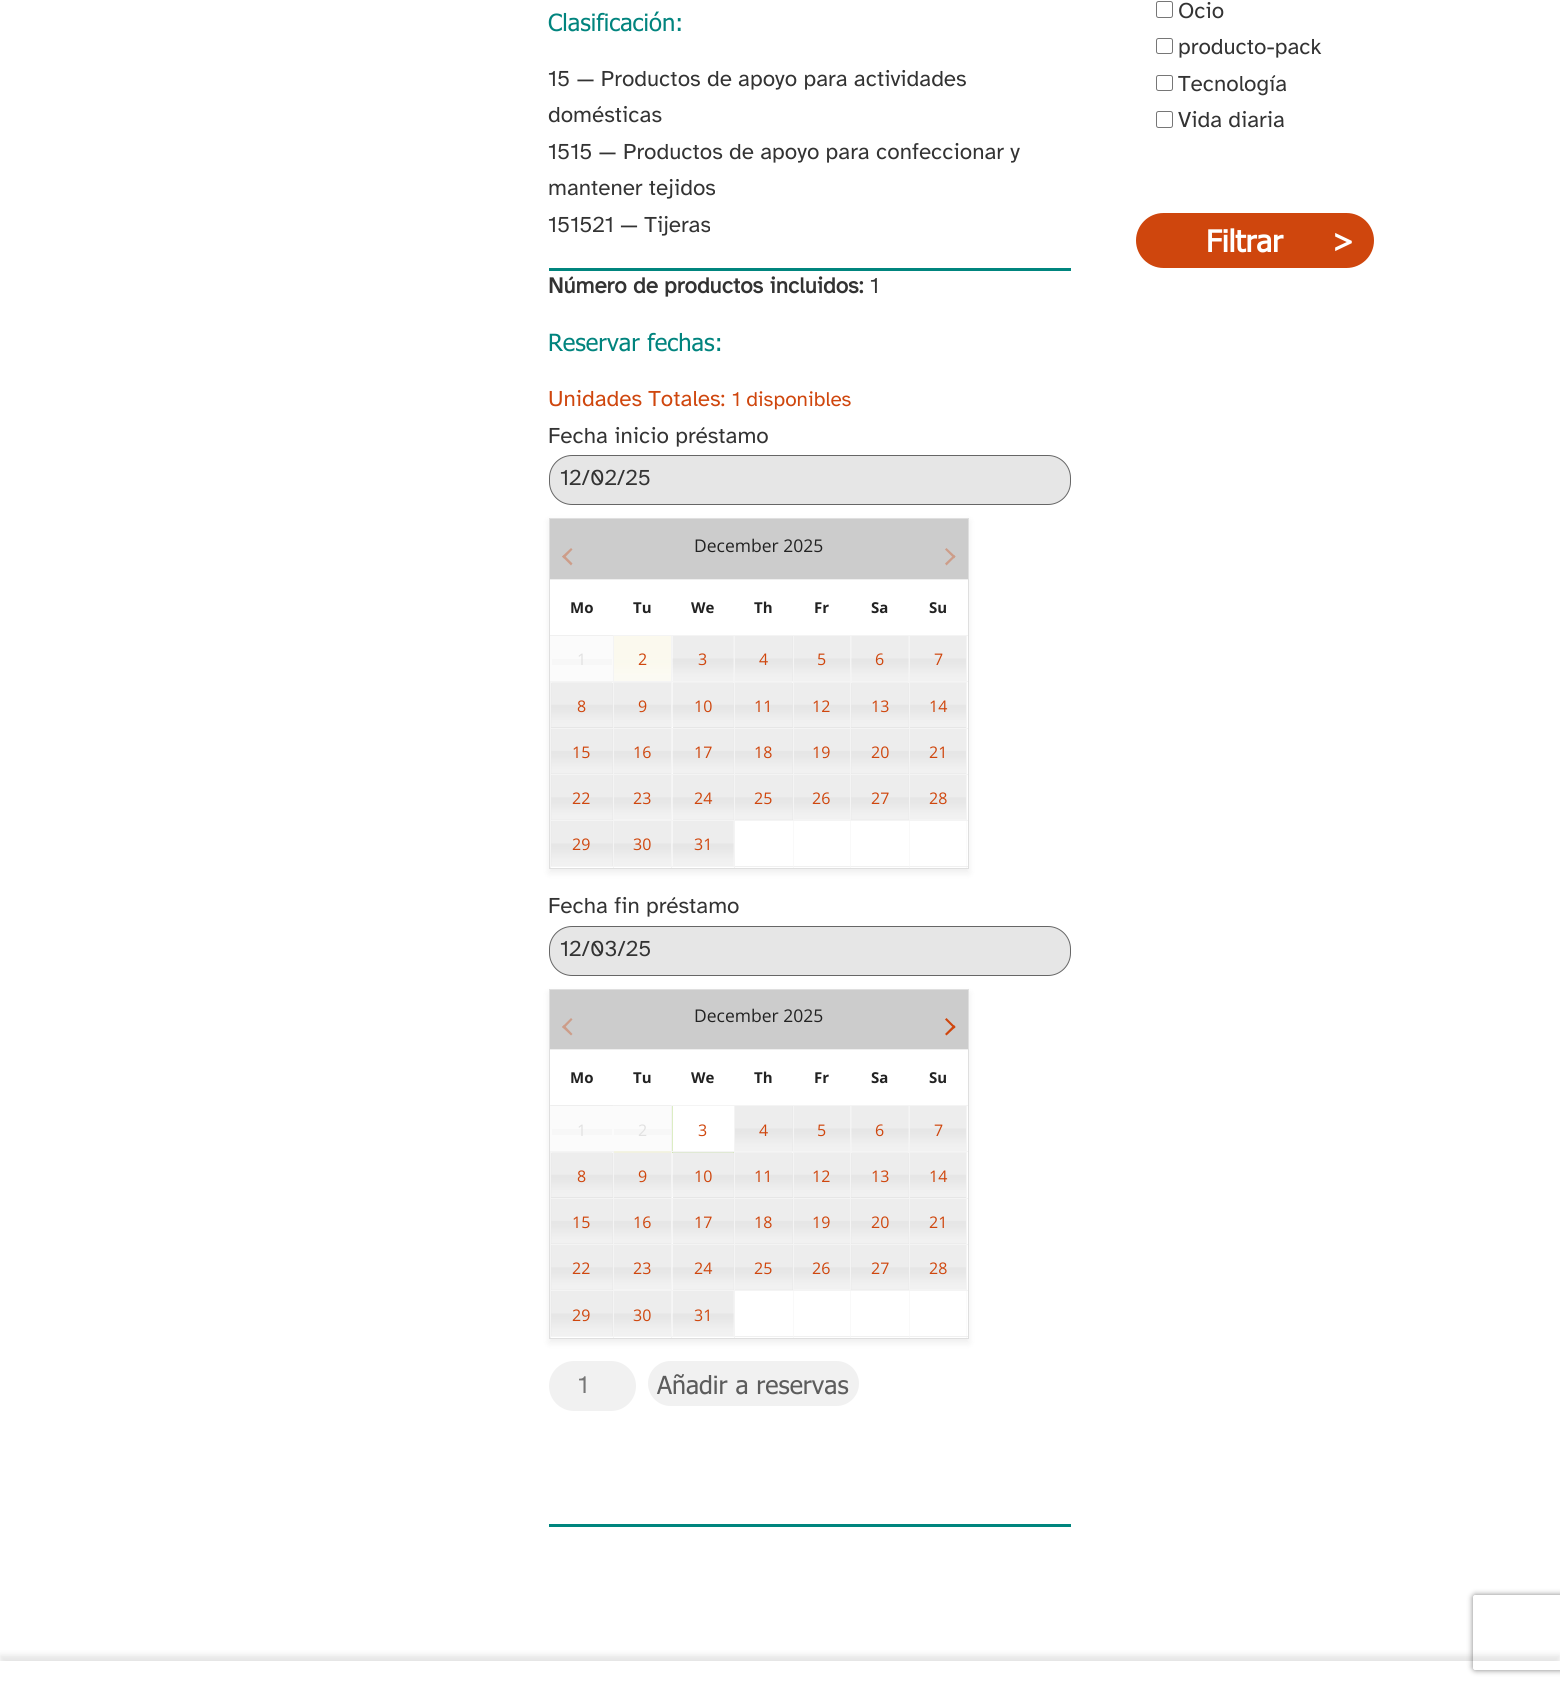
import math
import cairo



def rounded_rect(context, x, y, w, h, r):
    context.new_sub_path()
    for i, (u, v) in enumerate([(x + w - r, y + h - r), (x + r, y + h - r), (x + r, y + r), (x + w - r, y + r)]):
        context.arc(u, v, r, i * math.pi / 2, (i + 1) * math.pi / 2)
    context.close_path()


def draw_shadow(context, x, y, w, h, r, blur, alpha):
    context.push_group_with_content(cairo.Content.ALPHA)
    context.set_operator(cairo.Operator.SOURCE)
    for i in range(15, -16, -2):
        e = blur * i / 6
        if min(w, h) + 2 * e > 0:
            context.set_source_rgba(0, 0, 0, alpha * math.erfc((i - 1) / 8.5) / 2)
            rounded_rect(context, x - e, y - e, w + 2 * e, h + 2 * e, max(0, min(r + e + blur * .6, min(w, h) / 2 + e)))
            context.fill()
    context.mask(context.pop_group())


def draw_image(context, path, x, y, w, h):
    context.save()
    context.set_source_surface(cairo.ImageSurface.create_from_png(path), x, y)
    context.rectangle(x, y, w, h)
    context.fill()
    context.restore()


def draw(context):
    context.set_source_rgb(1, 1, 1)
    context.paint()
    context.set_source_rgb(0, 133 / 255, 126 / 255)
    context.rectangle(549, 268, 522, 3)
    context.fill()
    context.rectangle(549, 1524, 522, 3)
    context.fill()
    context.set_source_rgb(230 / 255, 230 / 255, 230 / 255)
    rounded_rect(context, 549.5, 455.5, 521, 49, 22.5)
    context.fill_preserve()
    context.set_source_rgb(102 / 255, 102 / 255, 102 / 255)
    context.set_line_width(1)
    context.stroke()
    context.set_source_rgb(0, 0, 0)
    draw_shadow(context, 549, 521, 420, 352, 0, 4, 0.07)
    context.set_source_rgb(1, 1, 1)
    context.rectangle(550, 580, 418, 288)
    context.fill()
    context.set_source_rgb(251 / 255, 251 / 255, 251 / 255)
    context.rectangle(550, 635, 1, 48)
    context.fill()
    context.set_source_rgb(249 / 255, 249 / 255, 249 / 255)
    context.rectangle(793, 820, 1, 48)
    context.fill()
    context.rectangle(850, 820, 1, 48)
    context.fill()
    context.rectangle(909, 820, 1, 48)
    context.fill()
    context.set_source_rgb(251 / 255, 251 / 255, 251 / 255)
    context.rectangle(966, 820, 1, 48)
    context.fill()
    context.rectangle(549.5, 518.5, 419, 350)
    context.set_source_rgb(223 / 255, 223 / 255, 223 / 255)
    context.stroke()
    context.set_source_rgb(204 / 255, 204 / 255, 204 / 255)
    context.rectangle(550, 519, 418, 60)
    context.fill()
    context.set_source_rgb(205 / 255, 157 / 255, 137 / 255)
    context.new_path()
    context.move_to(564, 555)
    context.line_to(572.5, 563.5)
    context.line_to(571, 565.5)
    context.line_to(562, 556.5)
    context.close_path()
    context.fill()
    context.new_path()
    context.move_to(571, 548)
    context.line_to(572.5, 549.5)
    context.line_to(564, 558.5)
    context.line_to(562, 556.5)
    context.close_path()
    context.fill()
    context.new_path()
    context.move_to(946.5, 548)
    context.line_to(955.5, 556.5)
    context.line_to(954, 558.5)
    context.line_to(945, 549.5)
    context.close_path()
    context.fill()
    context.new_path()
    context.move_to(954, 555)
    context.line_to(955.5, 556.5)
    context.line_to(946.5, 565.5)
    context.line_to(945, 563.5)
    context.close_path()
    context.fill()
    context.set_source_rgb(238 / 255, 238 / 255, 238 / 255)
    context.rectangle(550, 579, 418, 1)
    context.fill()
    context.set_source_rgb(240 / 255, 240 / 255, 240 / 255)
    context.rectangle(734, 866, 234, 1)
    context.fill()
    context.set_source_rgb(243 / 255, 243 / 255, 243 / 255)
    context.rectangle(793, 866, 1, 1)
    context.fill()
    context.rectangle(850, 866, 1, 1)
    context.fill()
    context.set_source_rgb(240 / 255, 240 / 255, 240 / 255)
    context.rectangle(550, 635, 64, 1)
    context.fill()
    context.set_source_rgb(251 / 255, 251 / 255, 251 / 255)
    context.rectangle(551, 636, 62, 45)
    context.fill()
    context.set_source_rgb(247 / 255, 247 / 255, 247 / 255)
    context.rectangle(552, 659, 60, 6)
    context.fill()
    context.set_source_rgb(244 / 255, 244 / 255, 244 / 255)
    context.rectangle(909, 635, 59, 1)
    context.fill()
    context.rectangle(909, 681, 59, 1)
    context.fill()
    context.rectangle(909, 728, 59, 1)
    context.fill()
    context.rectangle(909, 774, 59, 1)
    context.fill()
    context.rectangle(966, 774, 1, 47)
    context.fill()
    context.rectangle(909, 820, 59, 1)
    context.fill()
    context.rectangle(909, 774, 1, 47)
    context.fill()
    context.rectangle(850, 774, 60, 1)
    context.fill()
    context.rectangle(909, 728, 1, 47)
    context.fill()
    context.rectangle(850, 728, 60, 1)
    context.fill()
    context.rectangle(909, 681, 1, 48)
    context.fill()
    context.rectangle(850, 681, 60, 1)
    context.fill()
    context.rectangle(909, 635, 1, 48)
    context.fill()
    context.rectangle(850, 635, 60, 1)
    context.fill()
    context.rectangle(850, 820, 60, 1)
    context.fill()
    context.rectangle(850, 774, 1, 47)
    context.fill()
    context.rectangle(793, 774, 58, 1)
    context.fill()
    context.rectangle(850, 728, 1, 47)
    context.fill()
    context.rectangle(793, 728, 58, 1)
    context.fill()
    context.rectangle(850, 681, 1, 48)
    context.fill()
    context.rectangle(793, 681, 58, 1)
    context.fill()
    context.rectangle(850, 635, 1, 48)
    context.fill()
    context.rectangle(793, 635, 58, 1)
    context.fill()
    context.rectangle(793, 820, 58, 1)
    context.fill()
    context.rectangle(793, 774, 1, 47)
    context.fill()
    context.rectangle(734, 774, 60, 1)
    context.fill()
    context.rectangle(793, 728, 1, 47)
    context.fill()
    context.rectangle(734, 728, 60, 1)
    context.fill()
    context.rectangle(793, 681, 1, 48)
    context.fill()
    context.rectangle(734, 681, 60, 1)
    context.fill()
    context.rectangle(793, 635, 1, 48)
    context.fill()
    context.rectangle(734, 635, 60, 1)
    context.fill()
    context.rectangle(671, 820, 64, 1)
    context.fill()
    context.rectangle(734, 820, 1, 48)
    context.fill()
    context.rectangle(734, 820, 60, 1)
    context.fill()
    context.rectangle(734, 774, 1, 47)
    context.fill()
    context.rectangle(671, 774, 64, 1)
    context.fill()
    context.rectangle(734, 728, 1, 47)
    context.fill()
    context.rectangle(671, 728, 64, 1)
    context.fill()
    context.rectangle(734, 681, 1, 48)
    context.fill()
    context.rectangle(671, 681, 64, 1)
    context.fill()
    context.rectangle(734, 635, 1, 48)
    context.fill()
    context.rectangle(671, 635, 64, 1)
    context.fill()
    context.rectangle(671, 866, 64, 1)
    context.fill()
    context.rectangle(671, 820, 1, 48)
    context.fill()
    context.rectangle(613, 820, 60, 1)
    context.fill()
    context.rectangle(671, 774, 1, 47)
    context.fill()
    context.rectangle(613, 774, 60, 1)
    context.fill()
    context.rectangle(671, 728, 1, 47)
    context.fill()
    context.rectangle(613, 728, 60, 1)
    context.fill()
    context.rectangle(671, 681, 1, 48)
    context.fill()
    context.rectangle(613, 681, 60, 1)
    context.fill()
    context.rectangle(671, 635, 1, 48)
    context.fill()
    context.rectangle(613, 635, 60, 1)
    context.fill()
    context.rectangle(613, 866, 60, 1)
    context.fill()
    context.rectangle(613, 820, 1, 48)
    context.fill()
    context.rectangle(550, 820, 64, 1)
    context.fill()
    context.rectangle(613, 774, 1, 47)
    context.fill()
    context.rectangle(550, 774, 64, 1)
    context.fill()
    context.rectangle(613, 728, 1, 47)
    context.fill()
    context.rectangle(550, 728, 64, 1)
    context.fill()
    context.rectangle(613, 681, 1, 48)
    context.fill()
    context.rectangle(550, 681, 64, 1)
    context.fill()
    context.rectangle(613, 635, 1, 48)
    context.fill()
    context.set_source_rgb(251 / 255, 249 / 255, 238 / 255)
    context.rectangle(614, 636, 57, 22)
    context.fill()
    draw_image(context, "images/1.png", 614, 658, 57, 23)
    draw_image(context, "images/2.png", 672, 636, 62, 45)
    context.set_source_rgb(230 / 255, 230 / 255, 230 / 255)
    context.rectangle(792, 636, 1, 45)
    context.fill()
    draw_image(context, "images/3.png", 735, 636, 58, 45)
    draw_image(context, "images/4.png", 794, 636, 56, 45)
    draw_image(context, "images/5.png", 851, 636, 58, 45)
    context.set_source_rgb(244 / 255, 244 / 255, 244 / 255)
    context.rectangle(966, 728, 1, 47)
    context.fill()
    context.rectangle(966, 681, 1, 48)
    context.fill()
    context.rectangle(966, 635, 1, 48)
    context.fill()
    draw_image(context, "images/4.png", 910, 636, 56, 45)
    context.rectangle(550, 866, 64, 1)
    context.fill()
    context.rectangle(550, 820, 1, 48)
    context.fill()
    context.rectangle(550, 774, 1, 47)
    context.fill()
    context.rectangle(550, 728, 1, 47)
    context.fill()
    context.rectangle(550, 681, 1, 48)
    context.fill()
    context.set_source_rgb(230 / 255, 230 / 255, 230 / 255)
    context.rectangle(551, 683, 62, 45)
    context.fill()
    draw_image(context, "images/6.png", 551, 682, 62, 45)
    context.rectangle(614, 727, 57, 1)
    context.fill()
    draw_image(context, "images/7.png", 614, 682, 57, 45)
    context.rectangle(673, 683, 61, 45)
    context.fill()
    draw_image(context, "images/8.png", 672, 682, 62, 45)
    context.rectangle(735, 683, 58, 45)
    context.fill()
    draw_image(context, "images/9.png", 735, 682, 58, 45)
    context.rectangle(794, 727, 56, 1)
    context.fill()
    draw_image(context, "images/10.png", 794, 682, 56, 45)
    context.rectangle(851, 683, 58, 45)
    context.fill()
    draw_image(context, "images/11.png", 851, 682, 58, 45)
    context.rectangle(910, 727, 56, 1)
    context.fill()
    draw_image(context, "images/10.png", 910, 682, 56, 45)
    context.rectangle(551, 729, 62, 45)
    context.fill()
    draw_image(context, "images/12.png", 551, 729, 62, 45)
    context.rectangle(614, 773, 57, 1)
    context.fill()
    draw_image(context, "images/13.png", 614, 729, 57, 45)
    context.rectangle(673, 729, 61, 45)
    context.fill()
    draw_image(context, "images/14.png", 672, 729, 62, 45)
    context.rectangle(735, 729, 58, 45)
    context.fill()
    draw_image(context, "images/15.png", 735, 729, 58, 45)
    context.rectangle(794, 773, 56, 1)
    context.fill()
    draw_image(context, "images/16.png", 794, 729, 56, 45)
    context.rectangle(851, 729, 58, 45)
    context.fill()
    draw_image(context, "images/17.png", 851, 729, 58, 45)
    context.rectangle(910, 773, 56, 1)
    context.fill()
    draw_image(context, "images/16.png", 910, 729, 56, 45)
    context.rectangle(551, 775, 62, 45)
    context.fill()
    draw_image(context, "images/18.png", 551, 775, 62, 45)
    draw_image(context, "images/19.png", 614, 775, 57, 45)
    context.rectangle(673, 775, 61, 45)
    context.fill()
    draw_image(context, "images/20.png", 672, 775, 62, 45)
    context.rectangle(735, 775, 58, 45)
    context.fill()
    draw_image(context, "images/21.png", 735, 775, 58, 45)
    draw_image(context, "images/22.png", 794, 775, 56, 45)
    context.rectangle(851, 775, 58, 45)
    context.fill()
    draw_image(context, "images/23.png", 851, 775, 58, 45)
    draw_image(context, "images/22.png", 910, 775, 56, 45)
    context.rectangle(551, 821, 62, 45)
    context.fill()
    draw_image(context, "images/24.png", 551, 821, 62, 45)
    draw_image(context, "images/25.png", 614, 821, 57, 45)
    draw_image(context, "images/2.png", 672, 821, 62, 45)
    context.set_source_rgb(243 / 255, 243 / 255, 243 / 255)
    context.rectangle(909, 866, 1, 1)
    context.fill()
    context.set_source_rgb(230 / 255, 230 / 255, 230 / 255)
    rounded_rect(context, 549.5, 926.5, 521, 49, 22.5)
    context.fill_preserve()
    context.set_source_rgb(102 / 255, 102 / 255, 102 / 255)
    context.stroke()
    context.set_source_rgb(0, 0, 0)
    draw_shadow(context, 549, 993, 420, 350, 0, 4, 0.07)
    context.set_source_rgb(1, 1, 1)
    context.rectangle(550, 1050, 418, 288)
    context.fill()
    context.set_source_rgb(249 / 255, 249 / 255, 249 / 255)
    context.rectangle(793, 1290, 1, 48)
    context.fill()
    context.rectangle(850, 1290, 1, 48)
    context.fill()
    context.rectangle(909, 1290, 1, 48)
    context.fill()
    context.set_source_rgb(251 / 255, 251 / 255, 251 / 255)
    context.rectangle(966, 1290, 1, 48)
    context.fill()
    context.rectangle(549.5, 989.5, 419, 349)
    context.set_source_rgb(223 / 255, 223 / 255, 223 / 255)
    context.stroke()
    context.set_source_rgb(204 / 255, 204 / 255, 204 / 255)
    context.rectangle(550, 990, 418, 59)
    context.fill()
    context.set_source_rgb(205 / 255, 157 / 255, 137 / 255)
    context.new_path()
    context.move_to(564, 1025)
    context.line_to(572.5, 1034)
    context.line_to(571, 1035.5)
    context.line_to(562, 1027)
    context.close_path()
    context.fill()
    context.new_path()
    context.move_to(571, 1018)
    context.line_to(572.5, 1019.5)
    context.line_to(564, 1028.5)
    context.line_to(562, 1027)
    context.close_path()
    context.fill()
    context.set_source_rgb(207 / 255, 70 / 255, 13 / 255)
    context.new_path()
    context.move_to(946.5, 1018)
    context.line_to(955.5, 1027)
    context.line_to(954, 1028.5)
    context.line_to(945, 1019.5)
    context.close_path()
    context.fill()
    context.new_path()
    context.move_to(954, 1025)
    context.line_to(955.5, 1027)
    context.line_to(946.5, 1035.5)
    context.line_to(945, 1034)
    context.close_path()
    context.fill()
    context.set_source_rgb(238 / 255, 238 / 255, 238 / 255)
    context.rectangle(550, 1049, 418, 1)
    context.fill()
    context.set_source_rgb(240 / 255, 240 / 255, 240 / 255)
    context.rectangle(734, 1336, 234, 1)
    context.fill()
    context.set_source_rgb(243 / 255, 243 / 255, 243 / 255)
    context.rectangle(793, 1336, 1, 1)
    context.fill()
    context.rectangle(850, 1336, 1, 1)
    context.fill()
    context.set_source_rgb(238 / 255, 238 / 255, 238 / 255)
    context.rectangle(550, 1105, 63, 1)
    context.fill()
    context.set_source_rgb(240 / 255, 240 / 255, 240 / 255)
    context.rectangle(613, 1105, 60, 1)
    context.fill()
    context.set_source_rgb(244 / 255, 244 / 255, 244 / 255)
    context.rectangle(909, 1151, 59, 1)
    context.fill()
    context.rectangle(909, 1198, 59, 1)
    context.fill()
    context.rectangle(909, 1244, 59, 1)
    context.fill()
    context.rectangle(966, 1244, 1, 47)
    context.fill()
    context.rectangle(909, 1290, 59, 1)
    context.fill()
    context.rectangle(909, 1244, 1, 47)
    context.fill()
    context.rectangle(850, 1244, 60, 1)
    context.fill()
    context.rectangle(909, 1198, 1, 47)
    context.fill()
    context.rectangle(850, 1198, 60, 1)
    context.fill()
    context.rectangle(909, 1151, 1, 48)
    context.fill()
    context.rectangle(850, 1151, 60, 1)
    context.fill()
    context.rectangle(850, 1290, 60, 1)
    context.fill()
    context.rectangle(850, 1244, 1, 47)
    context.fill()
    context.rectangle(793, 1244, 58, 1)
    context.fill()
    context.rectangle(850, 1198, 1, 47)
    context.fill()
    context.rectangle(793, 1198, 58, 1)
    context.fill()
    context.rectangle(850, 1151, 1, 48)
    context.fill()
    context.rectangle(793, 1151, 58, 1)
    context.fill()
    context.rectangle(793, 1290, 58, 1)
    context.fill()
    context.rectangle(793, 1244, 1, 47)
    context.fill()
    context.rectangle(734, 1244, 60, 1)
    context.fill()
    context.rectangle(793, 1198, 1, 47)
    context.fill()
    context.rectangle(734, 1198, 60, 1)
    context.fill()
    context.rectangle(793, 1151, 1, 48)
    context.fill()
    context.rectangle(734, 1151, 60, 1)
    context.fill()
    context.rectangle(671, 1290, 64, 1)
    context.fill()
    context.rectangle(734, 1290, 1, 48)
    context.fill()
    context.rectangle(734, 1290, 60, 1)
    context.fill()
    context.rectangle(734, 1244, 1, 47)
    context.fill()
    context.rectangle(671, 1244, 64, 1)
    context.fill()
    context.rectangle(734, 1198, 1, 47)
    context.fill()
    context.rectangle(671, 1198, 64, 1)
    context.fill()
    context.rectangle(734, 1151, 1, 48)
    context.fill()
    context.rectangle(671, 1151, 64, 1)
    context.fill()
    context.rectangle(671, 1336, 64, 1)
    context.fill()
    context.rectangle(671, 1290, 1, 48)
    context.fill()
    context.rectangle(613, 1290, 60, 1)
    context.fill()
    context.rectangle(671, 1244, 1, 47)
    context.fill()
    context.rectangle(613, 1244, 60, 1)
    context.fill()
    context.rectangle(671, 1198, 1, 47)
    context.fill()
    context.rectangle(613, 1198, 60, 1)
    context.fill()
    context.rectangle(671, 1151, 1, 48)
    context.fill()
    context.rectangle(613, 1151, 60, 1)
    context.fill()
    context.rectangle(613, 1336, 60, 1)
    context.fill()
    context.rectangle(613, 1290, 1, 48)
    context.fill()
    context.rectangle(550, 1290, 64, 1)
    context.fill()
    context.rectangle(613, 1244, 1, 47)
    context.fill()
    context.rectangle(550, 1244, 64, 1)
    context.fill()
    context.rectangle(613, 1198, 1, 47)
    context.fill()
    context.rectangle(550, 1198, 64, 1)
    context.fill()
    context.rectangle(613, 1151, 1, 48)
    context.fill()
    context.rectangle(550, 1151, 64, 1)
    context.fill()
    context.rectangle(550, 1336, 64, 1)
    context.fill()
    context.rectangle(550, 1290, 1, 48)
    context.fill()
    context.rectangle(550, 1244, 1, 47)
    context.fill()
    context.rectangle(550, 1198, 1, 47)
    context.fill()
    context.rectangle(550, 1151, 1, 48)
    context.fill()
    context.set_source_rgba(244 / 255, 244 / 255, 244 / 255, 0.35)
    context.rectangle(550, 1105, 1, 48)
    context.fill()
    context.set_source_rgb(251 / 255, 251 / 255, 251 / 255)
    context.rectangle(551, 1106, 62, 45)
    context.fill()
    context.set_source_rgb(247 / 255, 247 / 255, 247 / 255)
    context.rectangle(552, 1129, 60, 6)
    context.fill()
    context.set_source_rgba(244 / 255, 244 / 255, 244 / 255, 0.35)
    context.rectangle(613, 1105, 1, 48)
    context.fill()
    draw_image(context, "images/26.png", 614, 1152, 57, 45)
    context.set_source_rgba(240 / 255, 240 / 255, 192 / 255, 0.35)
    context.rectangle(614, 1151, 57, 2)
    context.fill()
    context.set_source_rgb(251 / 255, 251 / 255, 251 / 255)
    context.rectangle(614, 1106, 57, 45)
    context.fill()
    context.set_source_rgb(247 / 255, 247 / 255, 247 / 255)
    context.rectangle(614, 1129, 57, 6)
    context.fill()
    context.set_source_rgb(187 / 255, 221 / 255, 136 / 255)
    context.rectangle(672, 1152, 62, 1)
    context.fill()
    context.set_source_rgb(244 / 255, 244 / 255, 244 / 255)
    context.rectangle(909, 1105, 59, 1)
    context.fill()
    context.rectangle(909, 1105, 1, 48)
    context.fill()
    context.rectangle(850, 1105, 60, 1)
    context.fill()
    context.rectangle(850, 1105, 1, 48)
    context.fill()
    context.rectangle(793, 1105, 58, 1)
    context.fill()
    context.rectangle(793, 1105, 1, 48)
    context.fill()
    context.rectangle(734, 1105, 60, 1)
    context.fill()
    context.rectangle(734, 1105, 1, 48)
    context.fill()
    context.rectangle(671, 1105, 64, 1)
    context.fill()
    context.rectangle(671, 1105, 1, 48)
    context.fill()
    context.set_source_rgb(220 / 255, 237 / 255, 195 / 255)
    context.rectangle(672, 1106, 1, 45)
    context.fill()
    context.set_source_rgb(230 / 255, 230 / 255, 230 / 255)
    context.rectangle(792, 1106, 1, 45)
    context.fill()
    draw_image(context, "images/3.png", 735, 1106, 58, 45)
    draw_image(context, "images/4.png", 794, 1106, 56, 45)
    draw_image(context, "images/5.png", 851, 1106, 58, 45)
    context.set_source_rgb(244 / 255, 244 / 255, 244 / 255)
    context.rectangle(966, 1198, 1, 47)
    context.fill()
    context.rectangle(966, 1151, 1, 48)
    context.fill()
    context.rectangle(966, 1105, 1, 48)
    context.fill()
    draw_image(context, "images/4.png", 910, 1106, 56, 45)
    context.set_source_rgb(230 / 255, 230 / 255, 230 / 255)
    context.rectangle(551, 1153, 62, 45)
    context.fill()
    draw_image(context, "images/6.png", 551, 1152, 62, 45)
    context.rectangle(614, 1197, 57, 1)
    context.fill()
    context.rectangle(673, 1153, 61, 45)
    context.fill()
    draw_image(context, "images/27.png", 672, 1152, 62, 45)
    context.rectangle(735, 1153, 58, 45)
    context.fill()
    draw_image(context, "images/9.png", 735, 1152, 58, 45)
    context.rectangle(794, 1197, 56, 1)
    context.fill()
    draw_image(context, "images/10.png", 794, 1152, 56, 45)
    context.rectangle(851, 1153, 58, 45)
    context.fill()
    draw_image(context, "images/11.png", 851, 1152, 58, 45)
    context.rectangle(910, 1197, 56, 1)
    context.fill()
    draw_image(context, "images/10.png", 910, 1152, 56, 45)
    context.rectangle(551, 1199, 62, 45)
    context.fill()
    draw_image(context, "images/12.png", 551, 1199, 62, 45)
    context.rectangle(614, 1243, 57, 1)
    context.fill()
    draw_image(context, "images/13.png", 614, 1199, 57, 45)
    context.rectangle(673, 1199, 61, 45)
    context.fill()
    draw_image(context, "images/14.png", 672, 1199, 62, 45)
    context.rectangle(735, 1199, 58, 45)
    context.fill()
    draw_image(context, "images/15.png", 735, 1199, 58, 45)
    context.rectangle(794, 1243, 56, 1)
    context.fill()
    draw_image(context, "images/16.png", 794, 1199, 56, 45)
    context.rectangle(851, 1199, 58, 45)
    context.fill()
    draw_image(context, "images/17.png", 851, 1199, 58, 45)
    context.rectangle(910, 1243, 56, 1)
    context.fill()
    draw_image(context, "images/16.png", 910, 1199, 56, 45)
    context.rectangle(551, 1245, 62, 45)
    context.fill()
    draw_image(context, "images/18.png", 551, 1245, 62, 45)
    draw_image(context, "images/19.png", 614, 1245, 57, 45)
    context.rectangle(673, 1245, 61, 45)
    context.fill()
    draw_image(context, "images/20.png", 672, 1245, 62, 45)
    context.rectangle(735, 1245, 58, 45)
    context.fill()
    draw_image(context, "images/21.png", 735, 1245, 58, 45)
    draw_image(context, "images/22.png", 794, 1245, 56, 45)
    context.rectangle(851, 1245, 58, 45)
    context.fill()
    draw_image(context, "images/23.png", 851, 1245, 58, 45)
    draw_image(context, "images/22.png", 910, 1245, 56, 45)
    context.rectangle(551, 1291, 62, 45)
    context.fill()
    draw_image(context, "images/24.png", 551, 1291, 62, 45)
    draw_image(context, "images/25.png", 614, 1291, 57, 45)
    draw_image(context, "images/2.png", 672, 1291, 62, 45)
    context.set_source_rgb(243 / 255, 243 / 255, 243 / 255)
    context.rectangle(909, 1336, 1, 1)
    context.fill()
    context.set_source_rgb(241 / 255, 241 / 255, 241 / 255)
    rounded_rect(context, 549, 1361, 87, 50, 25)
    context.fill()
    rounded_rect(context, 648, 1361, 211, 45, 22.5)
    context.fill()
    rounded_rect(context, 1156.5, 1.5, 16, 16, 2)
    context.set_source_rgb(118 / 255, 118 / 255, 118 / 255)
    context.stroke()
    rounded_rect(context, 1156.5, 38.5, 16, 15, 2)
    context.stroke()
    rounded_rect(context, 1156.5, 75.5, 16, 15, 2)
    context.stroke()
    rounded_rect(context, 1156.5, 111.5, 16, 16, 2)
    context.stroke()
    context.set_source_rgb(207 / 255, 70 / 255, 13 / 255)
    rounded_rect(context, 1136, 213, 238, 55, 27.5)
    context.fill()
    context.save()
    context.set_fill_rule(cairo.FillRule.EVEN_ODD)
    context.new_path()
    context.move_to(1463, 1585)
    context.line_to(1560, 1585)
    context.line_to(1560, 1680)
    context.line_to(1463, 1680)
    context.close_path()
    context.move_to(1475.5, 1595)
    context.line_to(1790.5, 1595)
    context.curve_to(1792, 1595, 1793, 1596, 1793, 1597.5)
    context.line_to(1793, 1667.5)
    context.curve_to(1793, 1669, 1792, 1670, 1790.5, 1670)
    context.line_to(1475.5, 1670)
    context.curve_to(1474, 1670, 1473, 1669, 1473, 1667.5)
    context.line_to(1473, 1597.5)
    context.curve_to(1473, 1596, 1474, 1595, 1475.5, 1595)
    context.close_path()
    context.clip()
    context.set_source_rgb(128 / 255, 128 / 255, 128 / 255)
    draw_shadow(context, 1473, 1595, 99, 75, 2.5, 3, 1)
    context.restore()
    context.save()
    context.set_fill_rule(cairo.FillRule.EVEN_ODD)
    context.new_path()
    context.move_to(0, 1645)
    context.line_to(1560, 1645)
    context.line_to(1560, 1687)
    context.line_to(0, 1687)
    context.close_path()
    context.move_to(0, 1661)
    context.line_to(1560, 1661)
    context.line_to(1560, 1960)
    context.line_to(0, 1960)
    context.close_path()
    context.clip()
    context.set_source_rgb(0, 0, 0)
    draw_shadow(context, 0, 1655, 1560, 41, 0, 3, 0.1)
    context.restore()
    context.select_font_face("Tahoma")
    context.set_font_size(23.75)
    context.set_source_rgb(1 / 255, 132 / 255, 126 / 255)
    context.move_to(548, 31)
    context.show_text("Clasificación:")
    context.select_font_face("Atkinson Hyperlegible")
    context.set_font_size(22.5)
    context.set_source_rgb(51 / 255, 51 / 255, 51 / 255)
    context.move_to(548, 86)
    context.show_text("15 — Productos de apoyo para actividades")
    context.move_to(548, 122)
    context.show_text("domésticas")
    context.move_to(548, 159)
    context.show_text("1515 — Productos de apoyo para confeccionar y")
    context.move_to(548, 195)
    context.show_text("mantener tejidos")
    context.move_to(548, 232)
    context.show_text("151521 — Tijeras")
    context.select_font_face("Atkinson Hyperlegible", cairo.FontSlant.NORMAL, cairo.FontWeight.BOLD)
    context.move_to(548, 293)
    context.show_text("Número de productos incluidos:")
    context.select_font_face("Atkinson Hyperlegible")
    context.move_to(870, 293)
    context.show_text("1")
    context.select_font_face("Tahoma")
    context.set_font_size(23.75)
    context.set_source_rgb(1 / 255, 132 / 255, 126 / 255)
    context.move_to(548, 351)
    context.show_text("Reservar fechas:")
    context.select_font_face("Atkinson Hyperlegible")
    context.set_font_size(22.5)
    context.set_source_rgb(207 / 255, 70 / 255, 13 / 255)
    context.move_to(548, 406)
    context.show_text("Unidades Totales:")
    context.set_font_size(20.75)
    context.move_to(732, 406)
    context.show_text("1 disponibles")
    context.set_font_size(22.5)
    context.set_source_rgb(51 / 255, 51 / 255, 51 / 255)
    context.move_to(548, 443)
    context.show_text("Fecha inicio préstamo")
    context.move_to(560, 485)
    context.show_text("12/02/25")
    context.select_font_face("Open Sans")
    context.set_font_size(17.5)
    context.set_source_rgb(34 / 255, 34 / 255, 34 / 255)
    context.move_to(694, 552)
    context.show_text("December 2025")
    context.select_font_face("Open Sans", cairo.FontSlant.NORMAL, cairo.FontWeight.BOLD)
    context.set_font_size(15)
    context.move_to(570, 613)
    context.show_text("Mo")
    context.move_to(633, 613)
    context.show_text("Tu")
    context.move_to(691, 613)
    context.show_text("We")
    context.move_to(754, 613)
    context.show_text("Th")
    context.move_to(814, 613)
    context.show_text("Fr")
    context.move_to(871, 613)
    context.show_text("Sa")
    context.move_to(929, 613)
    context.show_text("Su")
    context.select_font_face("Open Sans")
    context.set_font_size(16)
    context.set_source_rgb(225 / 255, 225 / 255, 225 / 255)
    context.move_to(577, 665)
    context.show_text("1")
    context.set_source_rgb(207 / 255, 70 / 255, 13 / 255)
    context.move_to(638, 665)
    context.show_text("2")
    context.move_to(698, 665)
    context.show_text("3")
    context.move_to(759, 665)
    context.show_text("4")
    context.move_to(817, 665)
    context.show_text("5")
    context.move_to(875, 665)
    context.show_text("6")
    context.move_to(934, 665)
    context.show_text("7")
    context.move_to(577, 712)
    context.show_text("8")
    context.move_to(638, 712)
    context.show_text("9")
    context.move_to(694, 712)
    context.show_text("10")
    context.move_to(754, 712)
    context.show_text("11")
    context.move_to(812, 712)
    context.show_text("12")
    context.move_to(871, 712)
    context.show_text("13")
    context.move_to(929, 712)
    context.show_text("14")
    context.move_to(572, 758)
    context.show_text("15")
    context.move_to(633, 758)
    context.show_text("16")
    context.move_to(694, 758)
    context.show_text("17")
    context.move_to(754, 758)
    context.show_text("18")
    context.move_to(812, 758)
    context.show_text("19")
    context.move_to(871, 758)
    context.show_text("20")
    context.move_to(929, 758)
    context.show_text("21")
    context.move_to(572, 804)
    context.show_text("22")
    context.move_to(633, 804)
    context.show_text("23")
    context.move_to(694, 804)
    context.show_text("24")
    context.move_to(754, 804)
    context.show_text("25")
    context.move_to(812, 804)
    context.show_text("26")
    context.move_to(871, 804)
    context.show_text("27")
    context.move_to(929, 804)
    context.show_text("28")
    context.move_to(572, 850)
    context.show_text("29")
    context.move_to(633, 850)
    context.show_text("30")
    context.move_to(694, 850)
    context.show_text("31")
    context.select_font_face("Atkinson Hyperlegible")
    context.set_font_size(22.5)
    context.set_source_rgb(51 / 255, 51 / 255, 51 / 255)
    context.move_to(548, 913)
    context.show_text("Fecha fin préstamo")
    context.move_to(560, 956)
    context.show_text("12/03/25")
    context.select_font_face("Open Sans")
    context.set_font_size(17.5)
    context.set_source_rgb(34 / 255, 34 / 255, 34 / 255)
    context.move_to(694, 1022)
    context.show_text("December 2025")
    context.select_font_face("Open Sans", cairo.FontSlant.NORMAL, cairo.FontWeight.BOLD)
    context.set_font_size(15)
    context.move_to(570, 1083)
    context.show_text("Mo")
    context.move_to(633, 1083)
    context.show_text("Tu")
    context.move_to(691, 1083)
    context.show_text("We")
    context.move_to(754, 1083)
    context.show_text("Th")
    context.move_to(814, 1083)
    context.show_text("Fr")
    context.move_to(871, 1083)
    context.show_text("Sa")
    context.move_to(929, 1083)
    context.show_text("Su")
    context.select_font_face("Open Sans")
    context.set_font_size(16)
    context.set_source_rgb(225 / 255, 225 / 255, 225 / 255)
    context.move_to(577, 1136)
    context.show_text("1")
    context.move_to(638, 1136)
    context.show_text("2")
    context.set_source_rgb(207 / 255, 70 / 255, 13 / 255)
    context.move_to(698, 1136)
    context.show_text("3")
    context.move_to(759, 1136)
    context.show_text("4")
    context.move_to(817, 1136)
    context.show_text("5")
    context.move_to(875, 1136)
    context.show_text("6")
    context.move_to(934, 1136)
    context.show_text("7")
    context.move_to(577, 1182)
    context.show_text("8")
    context.move_to(638, 1182)
    context.show_text("9")
    context.move_to(694, 1182)
    context.show_text("10")
    context.move_to(754, 1182)
    context.show_text("11")
    context.move_to(812, 1182)
    context.show_text("12")
    context.move_to(871, 1182)
    context.show_text("13")
    context.move_to(929, 1182)
    context.show_text("14")
    context.move_to(572, 1228)
    context.show_text("15")
    context.move_to(633, 1228)
    context.show_text("16")
    context.move_to(694, 1228)
    context.show_text("17")
    context.move_to(754, 1228)
    context.show_text("18")
    context.move_to(812, 1228)
    context.show_text("19")
    context.move_to(871, 1228)
    context.show_text("20")
    context.move_to(929, 1228)
    context.show_text("21")
    context.move_to(572, 1274)
    context.show_text("22")
    context.move_to(633, 1274)
    context.show_text("23")
    context.move_to(694, 1274)
    context.show_text("24")
    context.move_to(754, 1274)
    context.show_text("25")
    context.move_to(812, 1274)
    context.show_text("26")
    context.move_to(871, 1274)
    context.show_text("27")
    context.move_to(929, 1274)
    context.show_text("28")
    context.move_to(572, 1321)
    context.show_text("29")
    context.move_to(633, 1321)
    context.show_text("30")
    context.move_to(694, 1321)
    context.show_text("31")
    context.select_font_face("Atkinson Hyperlegible")
    context.set_font_size(25)
    context.set_source_rgb(118 / 255, 118 / 255, 118 / 255)
    context.move_to(578, 1393)
    context.show_text("1")
    context.select_font_face("Tahoma")
    context.set_source_rgb(92 / 255, 92 / 255, 92 / 255)
    context.move_to(657, 1394)
    context.show_text("Añadir a reservas")
    context.select_font_face("Atkinson Hyperlegible")
    context.set_font_size(22.5)
    context.set_source_rgb(51 / 255, 51 / 255, 51 / 255)
    context.move_to(1178, 18)
    context.show_text("Ocio")
    context.move_to(1178, 54)
    context.show_text("producto-pack")
    context.move_to(1178, 91)
    context.show_text("Tecnología")
    context.move_to(1178, 127)
    context.show_text("Vida diaria")
    context.select_font_face("Tahoma", cairo.FontSlant.NORMAL, cairo.FontWeight.BOLD)
    context.set_font_size(30)
    context.set_source_rgb(1, 1, 1)
    context.move_to(1206, 252)
    context.show_text("Filtrar")
    context.move_to(1332, 252)
    context.show_text(">")


surface = cairo.ImageSurface(cairo.Format.RGB24, 1560, 1687)
context = cairo.Context(surface)
options = cairo.FontOptions()
options.set_hint_metrics(cairo.HintMetrics.OFF)
options.set_hint_style(cairo.HintStyle.NONE)
context.set_font_options(options)
context.set_miter_limit(4)
draw(context)
surface.write_to_png("out.png")
